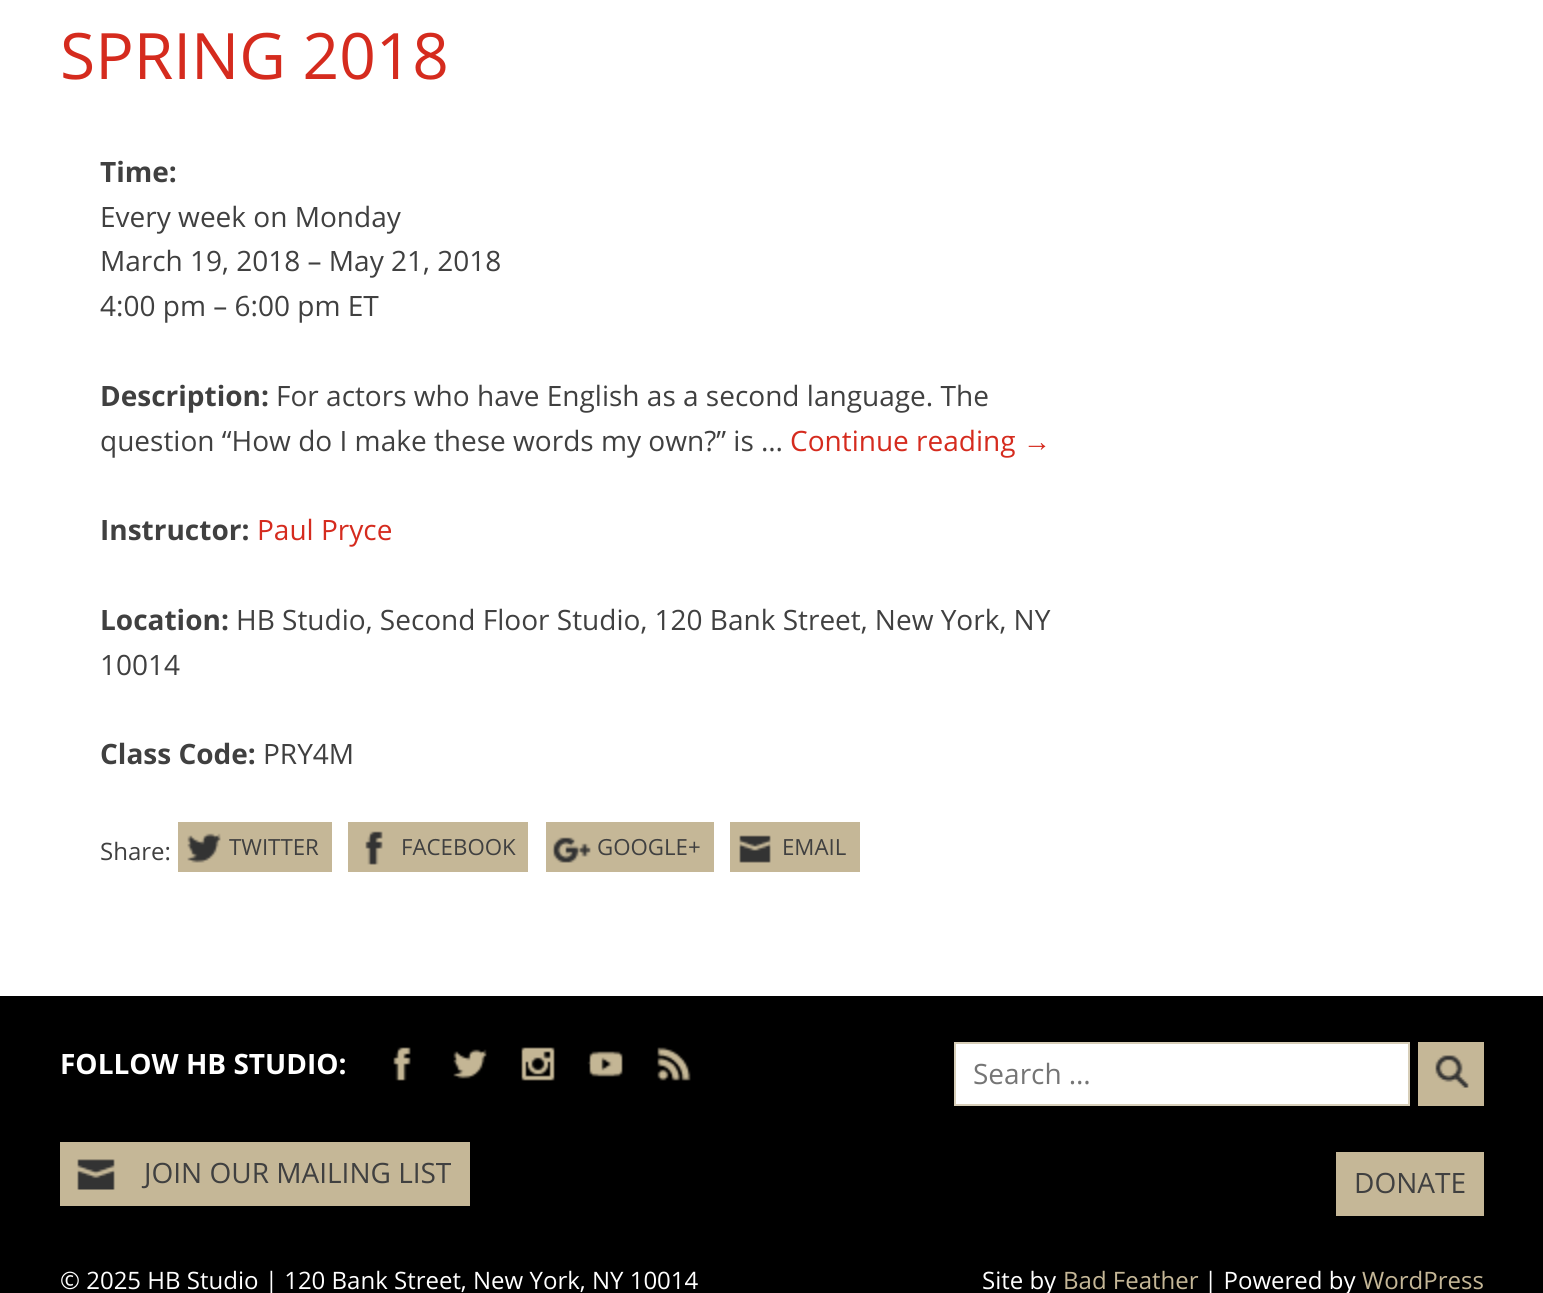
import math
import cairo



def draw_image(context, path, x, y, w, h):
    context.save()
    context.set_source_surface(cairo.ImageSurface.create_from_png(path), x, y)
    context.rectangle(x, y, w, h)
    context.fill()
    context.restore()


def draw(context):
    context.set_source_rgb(0, 0, 0)
    context.paint()
    context.set_source_rgb(1, 1, 1)
    context.rectangle(0, 0, 1543, 996)
    context.fill()
    context.set_source_rgb(197 / 255, 183 / 255, 151 / 255)
    context.rectangle(178, 822, 154, 50)
    context.fill()
    draw_image(context, "images/1.png", 187, 833, 34, 30)
    context.rectangle(348, 822, 180, 50)
    context.fill()
    draw_image(context, "images/2.png", 365, 831, 18, 34)
    context.rectangle(546, 822, 168, 50)
    context.fill()
    draw_image(context, "images/3.png", 552, 837, 39, 26)
    context.rectangle(730, 822, 130, 50)
    context.fill()
    draw_image(context, "images/4.png", 739, 835, 32, 28)
    draw_image(context, "images/5.png", 393, 1047, 18, 34)
    draw_image(context, "images/6.png", 453, 1049, 34, 30)
    draw_image(context, "images/7.png", 521, 1047, 34, 34)
    draw_image(context, "images/8.png", 587, 1051, 36, 26)
    draw_image(context, "images/9.png", 657, 1047, 34, 34)
    context.rectangle(60, 1142, 410, 64)
    context.fill()
    draw_image(context, "images/10.png", 77, 1159, 38, 31)
    context.set_source_rgb(1, 1, 1)
    context.rectangle(955, 1043, 454, 62)
    context.fill_preserve()
    context.set_source_rgb(215 / 255, 206 / 255, 184 / 255)
    context.stroke()
    context.set_source_rgb(197 / 255, 183 / 255, 151 / 255)
    context.rectangle(1418, 1042, 66, 64)
    context.fill()
    draw_image(context, "images/11.png", 1435, 1055, 34, 33)
    context.rectangle(1336, 1152, 148, 64)
    context.fill()
    context.select_font_face("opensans")
    context.set_font_size(64)
    context.set_source_rgb(213 / 255, 43 / 255, 30 / 255)
    context.move_to(60, 79)
    context.show_text("SPRING 2018")
    context.select_font_face("opensans", cairo.FontSlant.NORMAL, cairo.FontWeight.BOLD)
    context.set_font_size(28)
    context.set_source_rgb(64 / 255, 64 / 255, 64 / 255)
    context.move_to(100, 182)
    context.show_text("Time:")
    context.select_font_face("opensans")
    context.move_to(100, 227)
    context.show_text("Every week on Monday")
    context.move_to(100, 271)
    context.show_text("March 19, 2018 – May 21, 2018")
    context.move_to(100, 316)
    context.show_text("4:00 pm – 6:00 pm ET")
    context.select_font_face("opensans", cairo.FontSlant.NORMAL, cairo.FontWeight.BOLD)
    context.move_to(100, 406)
    context.show_text("Description:")
    context.select_font_face("opensans")
    context.move_to(276, 406)
    context.show_text("For actors who have English as a second language. The")
    context.move_to(100, 451)
    context.show_text("question “How do I make these words my own?” is …")
    context.set_source_rgb(213 / 255, 43 / 255, 30 / 255)
    context.move_to(790, 451)
    context.show_text("Continue reading")
    context.select_font_face("Liberation Sans")
    context.move_to(1023, 451)
    context.show_text("→")
    context.select_font_face("opensans", cairo.FontSlant.NORMAL, cairo.FontWeight.BOLD)
    context.set_source_rgb(64 / 255, 64 / 255, 64 / 255)
    context.move_to(100, 540)
    context.show_text("Instructor:")
    context.select_font_face("opensans")
    context.set_source_rgb(213 / 255, 43 / 255, 30 / 255)
    context.move_to(257, 540)
    context.show_text("Paul Pryce")
    context.select_font_face("opensans", cairo.FontSlant.NORMAL, cairo.FontWeight.BOLD)
    context.set_source_rgb(64 / 255, 64 / 255, 64 / 255)
    context.move_to(100, 630)
    context.show_text("Location:")
    context.select_font_face("opensans")
    context.move_to(236, 630)
    context.show_text("HB Studio, Second Floor Studio, 120 Bank Street, New York, NY")
    context.move_to(100, 675)
    context.show_text("10014")
    context.select_font_face("opensans", cairo.FontSlant.NORMAL, cairo.FontWeight.BOLD)
    context.move_to(100, 764)
    context.show_text("Class Code:")
    context.select_font_face("opensans")
    context.move_to(263, 764)
    context.show_text("PRY4M")
    context.set_font_size(24)
    context.move_to(100, 860)
    context.show_text("Share:")
    context.set_font_size(22.25)
    context.move_to(229, 855)
    context.show_text("TWITTER")
    context.move_to(401, 855)
    context.show_text("FACEBOOK")
    context.move_to(597, 855)
    context.show_text("GOOGLE+")
    context.move_to(782, 855)
    context.show_text("EMAIL")
    context.select_font_face("opensans", cairo.FontSlant.NORMAL, cairo.FontWeight.BOLD)
    context.set_font_size(28)
    context.set_source_rgb(1, 1, 1)
    context.move_to(60, 1074)
    context.show_text("FOLLOW HB STUDIO:")
    context.select_font_face("opensans")
    context.set_source_rgb(64 / 255, 64 / 255, 64 / 255)
    context.move_to(144, 1183)
    context.show_text("JOIN OUR MAILING LIST")
    context.set_source_rgb(117 / 255, 117 / 255, 117 / 255)
    context.move_to(973, 1084)
    context.show_text("Search …")
    context.set_source_rgb(64 / 255, 64 / 255, 64 / 255)
    context.move_to(1354, 1193)
    context.show_text("DONATE")
    context.set_font_size(24)
    context.set_source_rgb(1, 1, 1)
    context.move_to(60, 1289)
    context.show_text("© 2025 HB Studio | 120 Bank Street, New York, NY 10014")
    context.move_to(982, 1289)
    context.show_text("Site by")
    context.set_source_rgb(197 / 255, 183 / 255, 151 / 255)
    context.move_to(1063, 1289)
    context.show_text("Bad Feather")
    context.set_source_rgb(1, 1, 1)
    context.move_to(1204, 1289)
    context.show_text("| Powered by")
    context.set_source_rgb(197 / 255, 183 / 255, 151 / 255)
    context.move_to(1362, 1289)
    context.show_text("WordPress")


surface = cairo.ImageSurface(cairo.Format.RGB24, 1543, 1293)
context = cairo.Context(surface)
options = cairo.FontOptions()
options.set_hint_metrics(cairo.HintMetrics.OFF)
options.set_hint_style(cairo.HintStyle.NONE)
context.set_font_options(options)
context.set_miter_limit(4)
draw(context)
surface.write_to_png("out.png")
